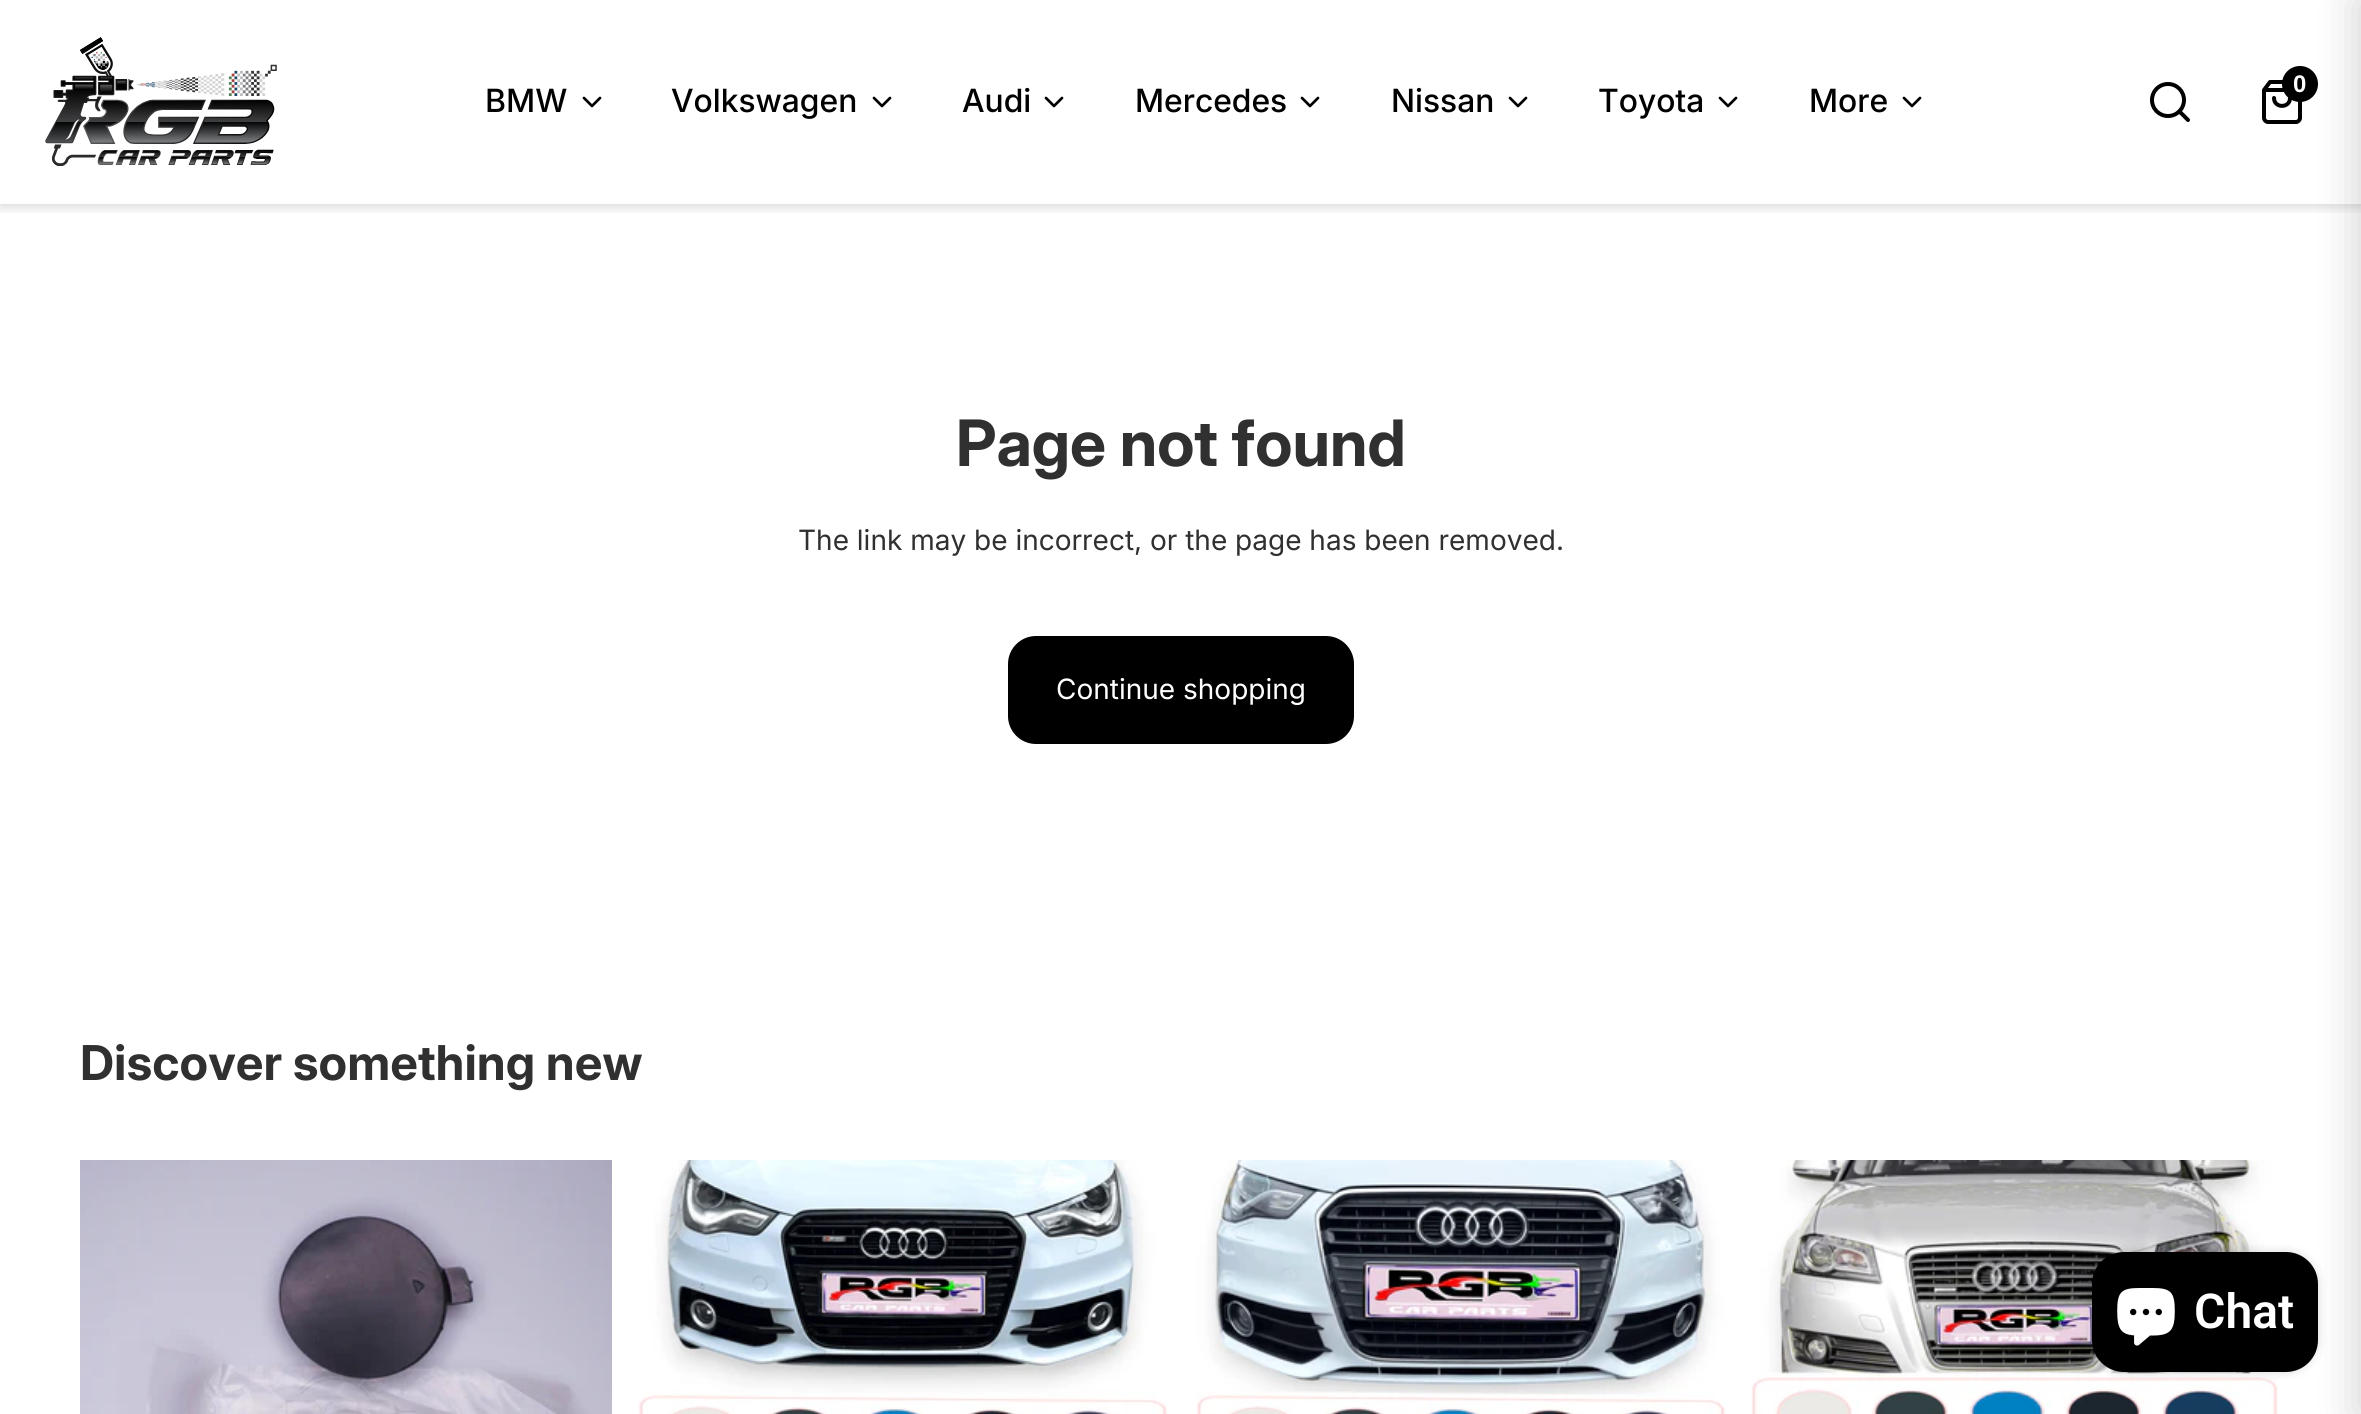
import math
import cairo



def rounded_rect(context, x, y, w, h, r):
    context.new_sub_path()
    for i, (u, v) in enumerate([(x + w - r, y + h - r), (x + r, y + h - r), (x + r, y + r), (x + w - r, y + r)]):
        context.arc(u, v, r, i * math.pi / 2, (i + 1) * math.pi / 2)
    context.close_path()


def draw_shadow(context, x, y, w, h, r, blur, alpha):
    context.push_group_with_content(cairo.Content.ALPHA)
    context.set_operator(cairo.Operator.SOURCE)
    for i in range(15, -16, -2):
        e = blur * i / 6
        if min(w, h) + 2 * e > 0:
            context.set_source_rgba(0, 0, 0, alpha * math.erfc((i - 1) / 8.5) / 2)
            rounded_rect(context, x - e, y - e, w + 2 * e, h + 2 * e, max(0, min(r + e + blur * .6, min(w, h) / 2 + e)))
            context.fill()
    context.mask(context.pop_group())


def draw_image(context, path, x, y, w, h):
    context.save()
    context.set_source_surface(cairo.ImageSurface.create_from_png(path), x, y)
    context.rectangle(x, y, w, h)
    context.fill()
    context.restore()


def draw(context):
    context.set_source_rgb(1, 1, 1)
    context.paint()
    context.save()
    context.rectangle(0, 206, 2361, 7)
    context.clip()
    context.set_source_rgb(0, 0, 0)
    draw_shadow(context, 0, 4, 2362, 206, 0, 4, 0.1)
    context.restore()
    context.set_source_rgb(230 / 255, 230 / 255, 230 / 255)
    context.rectangle(0, 204, 2361, 2)
    context.fill()
    draw_image(context, "images/1.png", 45, 37, 232, 129)
    context.arc(2168, 100, 16, 0, 2 * math.pi)
    context.set_source_rgb(0, 0, 0)
    context.set_line_width(4)
    context.stroke()
    context.new_path()
    context.move_to(2188, 120)
    context.line_to(2179.5, 111.5)
    context.set_line_cap(cairo.LineCap.ROUND)
    context.set_line_join(cairo.LineJoin.ROUND)
    context.stroke()
    context.new_path()
    context.move_to(2270, 82)
    context.line_to(2264, 90)
    context.line_to(2264, 118)
    context.curve_to(2264, 120, 2266, 122, 2268, 122)
    context.line_to(2296, 122)
    context.curve_to(2298, 122, 2300, 120, 2300, 118)
    context.line_to(2300, 90)
    context.line_to(2294, 82)
    context.close_path()
    context.move_to(2264, 90)
    context.line_to(2300, 90)
    context.move_to(2290, 98)
    context.curve_to(2290, 108.5, 2274, 108.5, 2274, 98)
    context.stroke()
    context.arc(2300, 84, 18, 0, 2 * math.pi)
    context.fill()
    context.new_path()
    context.move_to(584, 98)
    context.line_to(592, 106)
    context.line_to(600, 98)
    context.set_line_width(2.7)
    context.stroke()
    context.new_path()
    context.move_to(874, 98)
    context.line_to(882, 106)
    context.line_to(890, 98)
    context.stroke()
    context.new_path()
    context.move_to(1046, 98)
    context.line_to(1054, 106)
    context.line_to(1062, 98)
    context.stroke()
    context.new_path()
    context.move_to(1302, 98)
    context.line_to(1310, 106)
    context.line_to(1318, 98)
    context.stroke()
    context.new_path()
    context.move_to(1510, 98)
    context.line_to(1518, 106)
    context.line_to(1526, 98)
    context.stroke()
    context.new_path()
    context.move_to(1720, 98)
    context.line_to(1728, 106)
    context.line_to(1736, 98)
    context.stroke()
    context.new_path()
    context.move_to(1904, 98)
    context.line_to(1912, 106)
    context.line_to(1920, 98)
    context.stroke()
    context.set_source_rgb(0, 0, 0)
    draw_shadow(context, 2354, 0, 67, 1414, 0, 20, 0.15)
    context.set_source_rgb(0, 0, 0)
    rounded_rect(context, 1008, 636, 346, 108, 28)
    context.fill()
    draw_image(context, "images/2.png", 80, 1160, 532, 254)
    draw_image(context, "images/3.png", 638, 1160, 530, 254)
    draw_image(context, "images/4.png", 1196, 1160, 530, 254)
    draw_image(context, "images/5.png", 1751, 1160, 527, 254)
    context.set_source_rgb(0, 0, 0)
    draw_shadow(context, 2092, 1252, 226, 120, 32, 5, 0.15)
    context.set_source_rgb(0, 0, 0)
    rounded_rect(context, 2092, 1252, 226, 120, 32)
    context.fill()
    draw_image(context, "images/6.png", 2117, 1288, 58, 58)
    context.select_font_face("Liberation Sans", cairo.FontSlant.NORMAL, cairo.FontWeight.BOLD)
    context.set_font_size(24)
    context.set_source_rgb(1, 1, 1)
    context.move_to(2293, 92)
    context.show_text("0")
    context.select_font_face("Inter Medium")
    context.set_font_size(32)
    context.set_source_rgb(0, 0, 0)
    context.move_to(485, 112)
    context.show_text("BMW")
    context.select_font_face("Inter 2 Medium")
    context.move_to(671, 112)
    context.show_text("Volkswagen")
    context.move_to(962, 112)
    context.show_text("Audi")
    context.move_to(1135, 112)
    context.show_text("Mercedes")
    context.move_to(1391, 112)
    context.show_text("Nissan")
    context.move_to(1598, 112)
    context.show_text("Toyota")
    context.move_to(1809, 112)
    context.show_text("More")
    context.select_font_face("Inter", cairo.FontSlant.NORMAL, cairo.FontWeight.BOLD)
    context.set_font_size(64)
    context.set_source_rgb(48 / 255, 48 / 255, 48 / 255)
    context.move_to(956, 466)
    context.show_text("Page not found")
    context.select_font_face("Inter")
    context.set_font_size(28)
    context.move_to(798, 550)
    context.show_text("The link may be incorrect, or the page has been removed.")
    context.set_source_rgb(1, 1, 1)
    context.move_to(1056, 699)
    context.show_text("Continue shopping")
    context.select_font_face("Inter 2", cairo.FontSlant.NORMAL, cairo.FontWeight.BOLD)
    context.set_font_size(48)
    context.set_source_rgb(48 / 255, 48 / 255, 48 / 255)
    context.move_to(80, 1080)
    context.show_text("Discover something new")
    context.select_font_face("Roboto SemiBold")
    context.set_source_rgb(1, 1, 1)
    context.move_to(2194, 1328)
    context.show_text("Chat")


surface = cairo.ImageSurface(cairo.Format.RGB24, 2361, 1414)
context = cairo.Context(surface)
options = cairo.FontOptions()
options.set_hint_metrics(cairo.HintMetrics.OFF)
options.set_hint_style(cairo.HintStyle.NONE)
context.set_font_options(options)
context.set_miter_limit(4)
draw(context)
surface.write_to_png("out.png")
